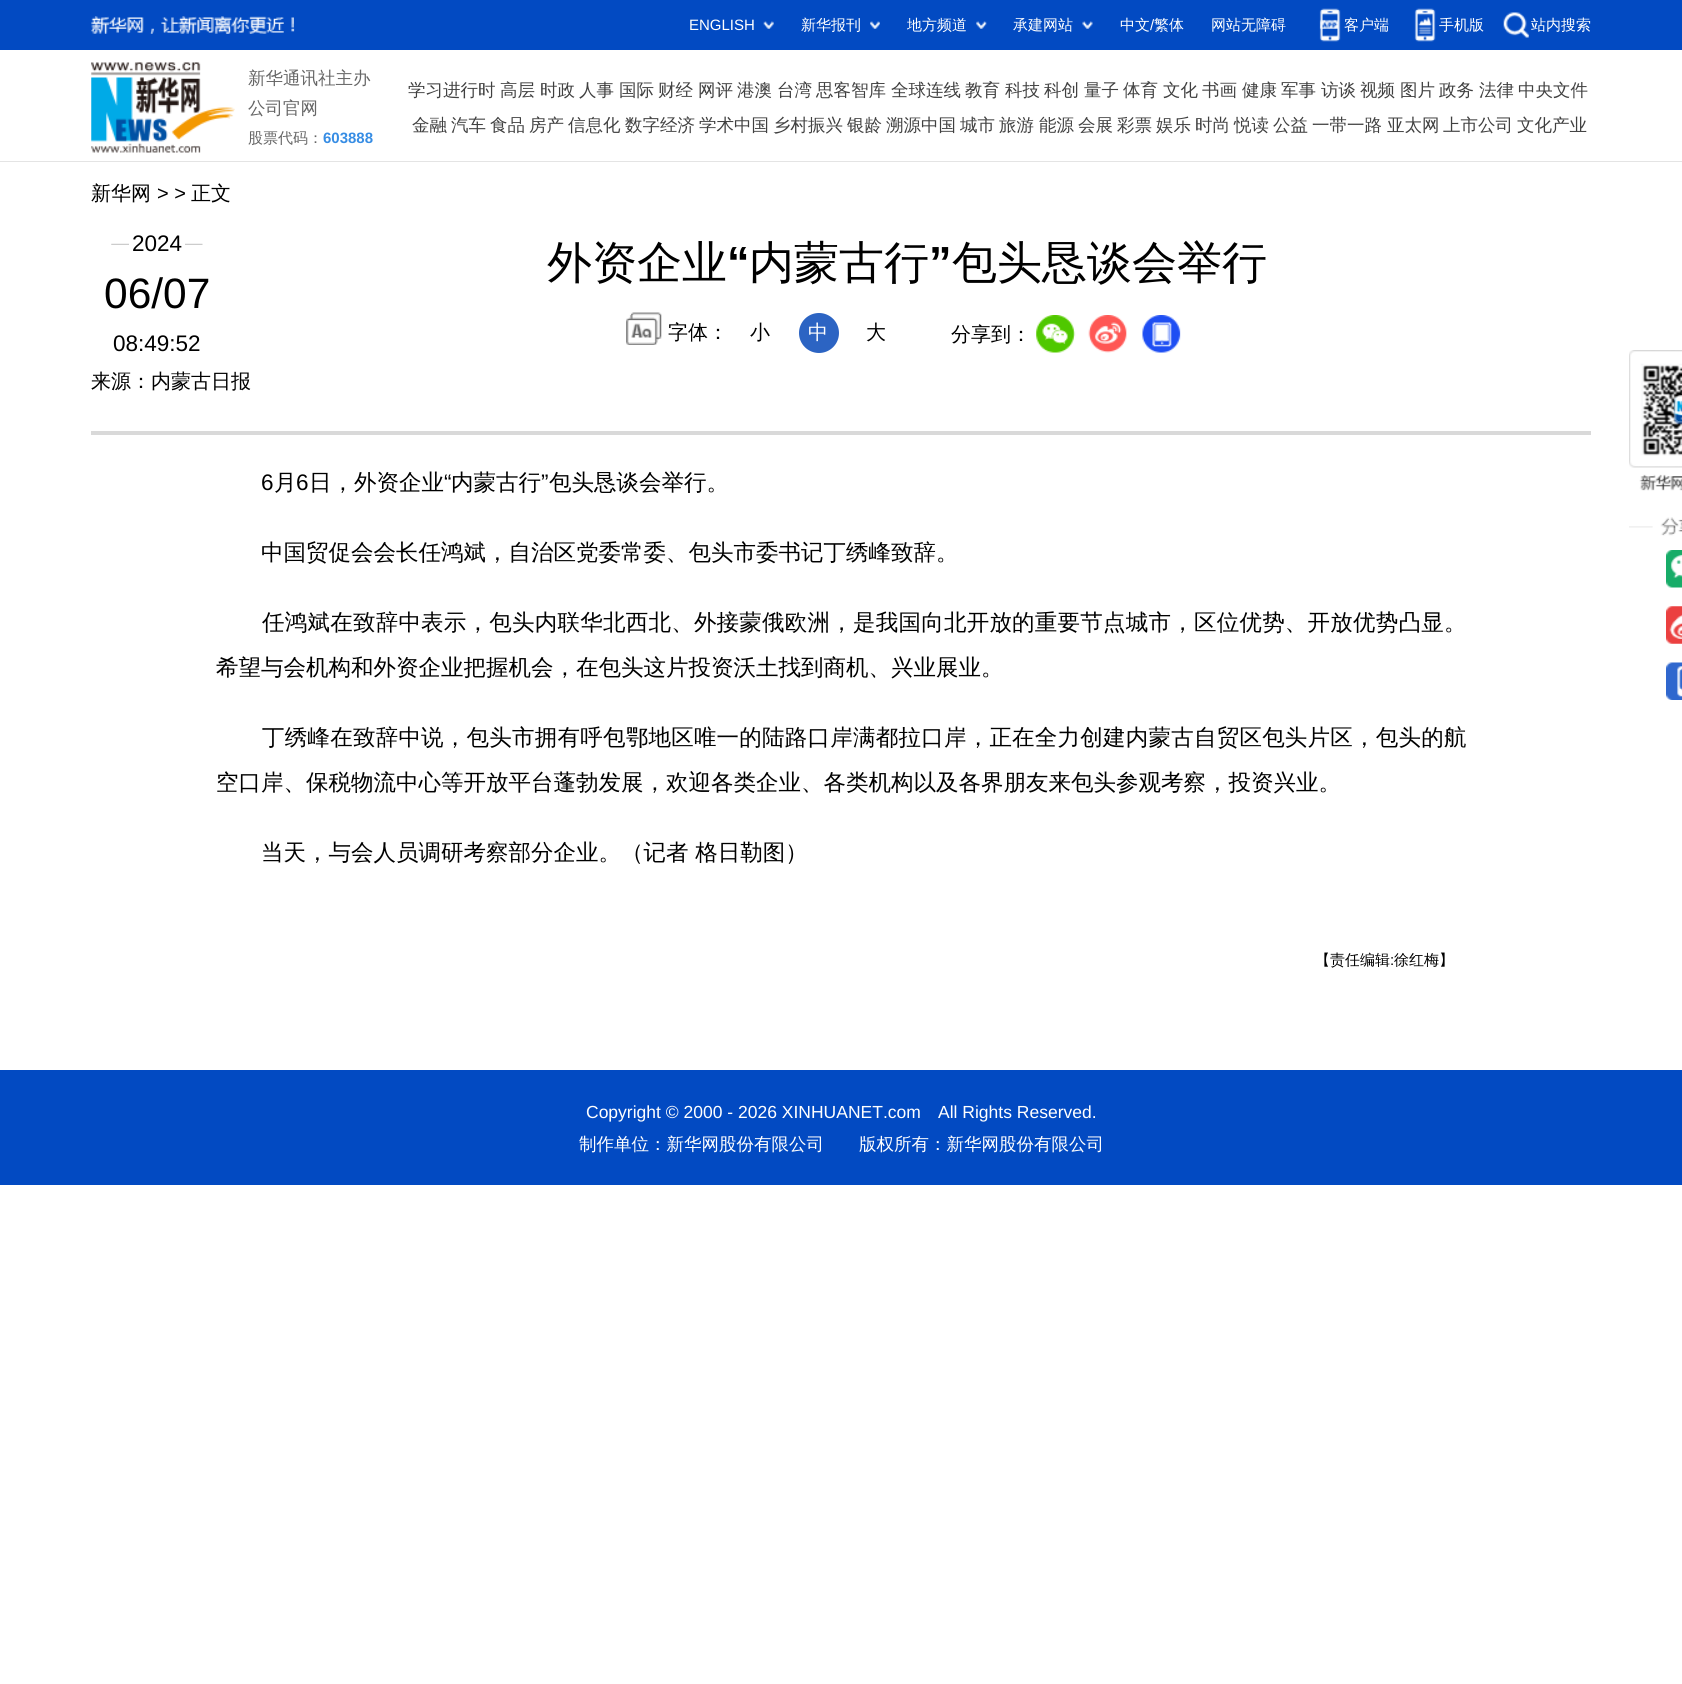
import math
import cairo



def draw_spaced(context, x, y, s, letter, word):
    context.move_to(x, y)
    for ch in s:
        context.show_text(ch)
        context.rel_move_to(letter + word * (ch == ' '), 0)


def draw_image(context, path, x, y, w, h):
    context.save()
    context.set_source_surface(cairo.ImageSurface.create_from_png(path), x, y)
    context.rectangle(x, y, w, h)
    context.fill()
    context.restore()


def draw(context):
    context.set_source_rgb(1, 1, 1)
    context.paint()
    context.set_source_rgb(2 / 255, 74 / 255, 194 / 255)
    context.rectangle(0, 0, 1682, 50)
    context.fill()
    draw_image(context, "images/1.png", 91, 16, 204, 18)
    draw_image(context, "images/2.png", 763, 21, 11, 8)
    draw_image(context, "images/3.png", 870, 21, 10, 8)
    draw_image(context, "images/4.png", 976, 21, 11, 8)
    draw_image(context, "images/5.png", 1082, 21, 11, 8)
    draw_image(context, "images/6.png", 1319, 8, 22, 34)
    draw_image(context, "images/7.png", 1414, 8, 22, 34)
    draw_image(context, "images/8.png", 1503, 12, 26, 26)
    context.set_source_rgb(228 / 255, 228 / 255, 228 / 255)
    context.rectangle(0, 161, 1682, 1)
    context.fill()
    draw_image(context, "images/9.png", 91, 62, 144, 91)
    context.set_source_rgb(217 / 255, 217 / 255, 217 / 255)
    context.rectangle(91, 431, 1500, 4)
    context.fill()
    draw_image(context, "images/10.png", 111, 243, 92, 2)
    context.set_source_rgb(1, 1, 1)
    context.rectangle(129, 243, 56, 2)
    context.fill()
    draw_image(context, "images/11.png", 626, 312, 36, 33)
    context.set_source_rgb(44 / 255, 100 / 255, 195 / 255)
    context.arc(819, 333, 20, 0, 2 * math.pi)
    context.fill()
    draw_image(context, "images/12.png", 1036, 315, 40, 38)
    draw_image(context, "images/13.png", 1088, 315, 39, 38)
    draw_image(context, "images/14.png", 1142, 315, 39, 38)
    draw_image(context, "images/15.png", 1629, 350, 53, 141)
    draw_image(context, "images/16.png", 1629, 517, 53, 19)
    draw_image(context, "images/17.png", 1666, 550, 16, 38)
    draw_image(context, "images/18.png", 1666, 606, 16, 38)
    draw_image(context, "images/19.png", 1666, 662, 16, 38)
    context.set_source_rgb(2 / 255, 74 / 255, 194 / 255)
    context.rectangle(0, 1070, 1682, 115)
    context.fill()
    context.select_font_face("Liberation Sans")
    context.set_font_size(15)
    context.set_source_rgb(1, 1, 1)
    context.move_to(689, 30)
    context.show_text("ENGLISH")
    context.select_font_face("WenQuanYi Zen Hei Medium")
    context.move_to(801, 30)
    context.show_text("新华报刊")
    context.move_to(907, 30)
    context.show_text("地方频道")
    context.move_to(1013, 30)
    context.show_text("承建网站")
    context.move_to(1120, 30)
    context.show_text("中文")
    context.select_font_face("Liberation Sans")
    context.move_to(1150, 30)
    context.show_text("/")
    context.select_font_face("WenQuanYi Zen Hei Medium")
    context.move_to(1154, 30)
    context.show_text("繁体")
    context.move_to(1211, 30)
    context.show_text("网站无障碍")
    context.move_to(1344, 30)
    context.show_text("客户端")
    context.move_to(1439, 30)
    context.show_text("手机版")
    context.move_to(1531, 30)
    context.show_text("站内搜索")
    context.set_font_size(17.5)
    context.set_source_rgb(102 / 255, 102 / 255, 102 / 255)
    context.move_to(248, 84)
    context.show_text("新华通讯社主办")
    context.move_to(248, 114)
    context.show_text("公司官网")
    context.set_font_size(15)
    context.move_to(248, 143)
    context.show_text("股票代码：")
    context.select_font_face("Liberation Sans", cairo.FontSlant.NORMAL, cairo.FontWeight.BOLD)
    context.set_source_rgb(55 / 255, 141 / 255, 228 / 255)
    context.move_to(323, 143)
    context.show_text("603888")
    context.select_font_face("WenQuanYi Zen Hei Medium")
    context.set_font_size(17.5)
    context.set_source_rgb(64 / 255, 64 / 255, 64 / 255)
    context.move_to(408, 96)
    context.show_text("学习进行时")
    context.move_to(500, 96)
    context.show_text("高层")
    context.move_to(540, 96)
    context.show_text("时政")
    context.move_to(579, 96)
    context.show_text("人事")
    context.move_to(619, 96)
    context.show_text("国际")
    context.move_to(658, 96)
    context.show_text("财经")
    context.move_to(698, 96)
    context.show_text("网评")
    context.move_to(737, 96)
    context.show_text("港澳")
    context.move_to(777, 96)
    context.show_text("台湾")
    context.move_to(816, 96)
    context.show_text("思客智库")
    context.move_to(891, 96)
    context.show_text("全球连线")
    context.move_to(965, 96)
    context.show_text("教育")
    context.move_to(1005, 96)
    context.show_text("科技")
    context.move_to(1044, 96)
    context.show_text("科创")
    context.move_to(1084, 96)
    context.show_text("量子")
    context.move_to(1123, 96)
    context.show_text("体育")
    context.move_to(1163, 96)
    context.show_text("文化")
    context.move_to(1202, 96)
    context.show_text("书画")
    context.move_to(1242, 96)
    context.show_text("健康")
    context.move_to(1281, 96)
    context.show_text("军事")
    context.move_to(1321, 96)
    context.show_text("访谈")
    context.move_to(1360, 96)
    context.show_text("视频")
    context.move_to(1400, 96)
    context.show_text("图片")
    context.move_to(1439, 96)
    context.show_text("政务")
    context.move_to(1479, 96)
    context.show_text("法律")
    context.move_to(1518, 96)
    context.show_text("中央文件")
    context.move_to(412, 131)
    context.show_text("金融")
    context.move_to(451, 131)
    context.show_text("汽车")
    context.move_to(490, 131)
    context.show_text("食品")
    context.move_to(529, 131)
    context.show_text("房产")
    context.move_to(568, 131)
    context.show_text("信息化")
    context.move_to(625, 131)
    context.show_text("数字经济")
    context.move_to(699, 131)
    context.show_text("学术中国")
    context.move_to(773, 131)
    context.show_text("乡村振兴")
    context.move_to(847, 131)
    context.show_text("银龄")
    context.move_to(886, 131)
    context.show_text("溯源中国")
    context.move_to(960, 131)
    context.show_text("城市")
    context.move_to(999, 131)
    context.show_text("旅游")
    context.move_to(1039, 131)
    context.show_text("能源")
    context.move_to(1078, 131)
    context.show_text("会展")
    context.move_to(1117, 131)
    context.show_text("彩票")
    context.move_to(1156, 131)
    context.show_text("娱乐")
    context.move_to(1195, 131)
    context.show_text("时尚")
    context.move_to(1234, 131)
    context.show_text("悦读")
    context.move_to(1273, 131)
    context.show_text("公益")
    context.move_to(1312, 131)
    context.show_text("一带一路")
    context.move_to(1387, 131)
    context.show_text("亚太网")
    context.move_to(1443, 131)
    context.show_text("上市公司")
    context.move_to(1517, 131)
    context.show_text("文化产业")
    context.set_font_size(20)
    context.set_source_rgb(0, 0, 0)
    context.move_to(91, 200)
    context.show_text("新华网")
    context.select_font_face("Liberation Sans")
    context.move_to(157, 200)
    context.show_text("> >")
    context.select_font_face("WenQuanYi Zen Hei Medium")
    context.move_to(191, 200)
    context.show_text("正文")
    context.select_font_face("Liberation Sans")
    context.set_font_size(22.5)
    context.move_to(132, 251)
    context.show_text("2024")
    context.set_font_size(42.5)
    context.move_to(104, 308)
    context.show_text("06/07")
    context.set_font_size(22.5)
    context.move_to(113, 351)
    context.show_text("08:49:52")
    context.select_font_face("WenQuanYi Zen Hei Medium")
    context.set_font_size(45)
    context.move_to(547, 278)
    context.show_text("外资企业")
    context.select_font_face("Liberation Sans", cairo.FontSlant.NORMAL, cairo.FontWeight.BOLD)
    context.move_to(727, 278)
    context.show_text("“")
    context.select_font_face("WenQuanYi Zen Hei Medium")
    context.move_to(749, 278)
    context.show_text("内蒙古行")
    context.select_font_face("Liberation Sans", cairo.FontSlant.NORMAL, cairo.FontWeight.BOLD)
    context.move_to(929, 278)
    context.show_text("”")
    context.select_font_face("WenQuanYi Zen Hei Medium")
    context.move_to(952, 278)
    context.show_text("包头恳谈会举行")
    context.set_font_size(20)
    context.move_to(668, 339)
    context.show_text("字体：")
    context.move_to(750, 339)
    context.show_text("小")
    context.set_source_rgb(1, 1, 1)
    context.move_to(808, 339)
    context.show_text("中")
    context.set_source_rgb(0, 0, 0)
    context.move_to(866, 339)
    context.show_text("大")
    context.move_to(951, 341)
    context.show_text("分享到：")
    context.move_to(91, 388)
    context.show_text("来源：内蒙古日报")
    context.select_font_face("Liberation Sans")
    context.set_font_size(22.5)
    context.move_to(261, 490)
    context.show_text("6")
    context.select_font_face("WenQuanYi Zen Hei Medium")
    context.move_to(274, 490)
    context.show_text("月")
    context.select_font_face("Liberation Sans")
    context.move_to(296, 490)
    context.show_text("6")
    context.select_font_face("WenQuanYi Zen Hei Medium")
    context.move_to(309, 490)
    context.show_text("日，外资企业")
    context.select_font_face("Liberation Sans")
    context.move_to(444, 490)
    context.show_text("“")
    context.select_font_face("WenQuanYi Zen Hei Medium")
    context.move_to(451, 490)
    context.show_text("内蒙古行")
    context.select_font_face("Liberation Sans")
    context.move_to(541, 490)
    context.show_text("”")
    context.select_font_face("WenQuanYi Zen Hei Medium")
    context.move_to(549, 490)
    context.show_text("包头恳谈会举行。")
    context.move_to(261, 560)
    context.show_text("中国贸促会会长任鸿斌，自治区党委常委、包头市委书记丁绣峰致辞。")
    draw_spaced(context, 262, 630, "任鸿斌在致辞中表示，包头内联华北西北、外接蒙俄欧洲，是我国向北开放的重要节点城市，区位优势、开放优势凸显。", 0.23, 0)
    context.move_to(216, 675)
    context.show_text("希望与会机构和外资企业把握机会，在包头这片投资沃土找到商机、兴业展业。")
    draw_spaced(context, 262, 745, "丁绣峰在致辞中说，包头市拥有呼包鄂地区唯一的陆路口岸满都拉口岸，正在全力创建内蒙古自贸区包头片区，包头的航", 0.23, 0)
    context.move_to(216, 790)
    context.show_text("空口岸、保税物流中心等开放平台蓬勃发展，欢迎各类企业、各类机构以及各界朋友来包头参观考察，投资兴业。")
    context.move_to(261, 860)
    context.show_text("当天，与会人员调研考察部分企业。（记者 格日勒图）")
    context.set_font_size(15)
    context.move_to(1315, 965)
    context.show_text("【责任编辑")
    context.select_font_face("Liberation Sans")
    context.move_to(1390, 965)
    context.show_text(":")
    context.select_font_face("WenQuanYi Zen Hei Medium")
    context.move_to(1394, 965)
    context.show_text("徐红梅】")
    context.select_font_face("Liberation Sans")
    context.set_font_size(17.5)
    context.set_source_rgb(1, 1, 1)
    context.move_to(586, 1118)
    context.show_text("Copyright © 2000 - 2026 XINHUANET.com")
    context.move_to(938, 1118)
    context.show_text("All Rights Reserved.")
    context.select_font_face("WenQuanYi Zen Hei Medium")
    context.move_to(579, 1150)
    context.show_text("制作单位：新华网股份有限公司　　版权所有：新华网股份有限公司")


surface = cairo.ImageSurface(cairo.Format.RGB24, 1682, 1684)
context = cairo.Context(surface)
options = cairo.FontOptions()
options.set_hint_metrics(cairo.HintMetrics.OFF)
options.set_hint_style(cairo.HintStyle.NONE)
context.set_font_options(options)
context.set_miter_limit(4)
draw(context)
surface.write_to_png("out.png")
